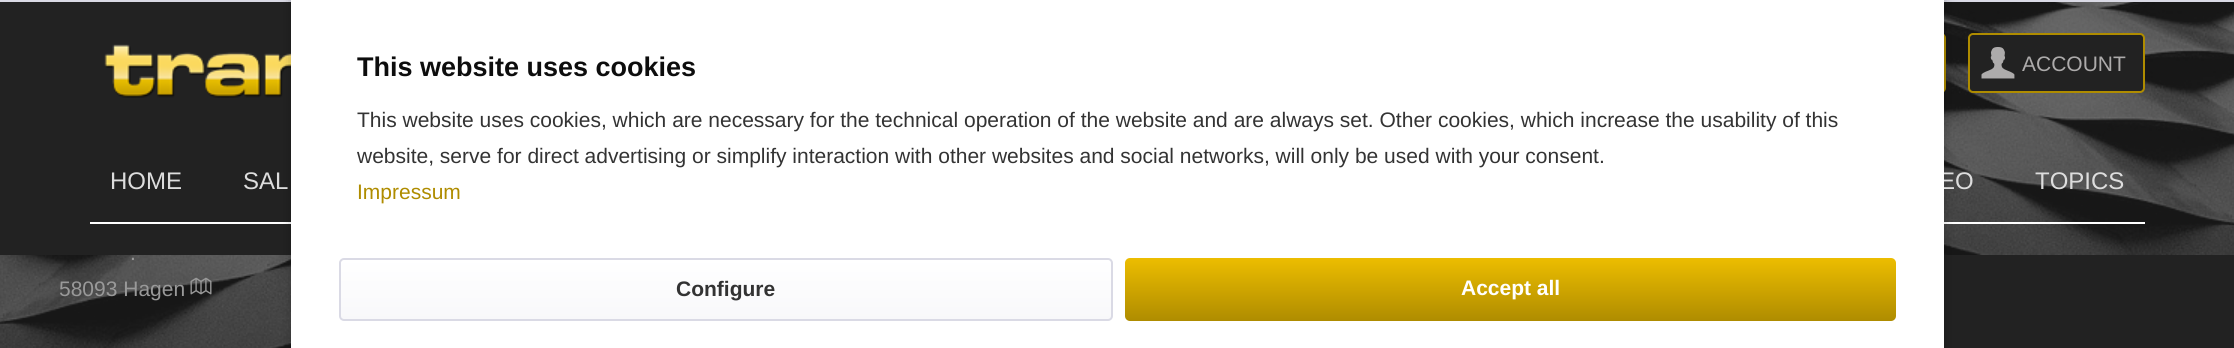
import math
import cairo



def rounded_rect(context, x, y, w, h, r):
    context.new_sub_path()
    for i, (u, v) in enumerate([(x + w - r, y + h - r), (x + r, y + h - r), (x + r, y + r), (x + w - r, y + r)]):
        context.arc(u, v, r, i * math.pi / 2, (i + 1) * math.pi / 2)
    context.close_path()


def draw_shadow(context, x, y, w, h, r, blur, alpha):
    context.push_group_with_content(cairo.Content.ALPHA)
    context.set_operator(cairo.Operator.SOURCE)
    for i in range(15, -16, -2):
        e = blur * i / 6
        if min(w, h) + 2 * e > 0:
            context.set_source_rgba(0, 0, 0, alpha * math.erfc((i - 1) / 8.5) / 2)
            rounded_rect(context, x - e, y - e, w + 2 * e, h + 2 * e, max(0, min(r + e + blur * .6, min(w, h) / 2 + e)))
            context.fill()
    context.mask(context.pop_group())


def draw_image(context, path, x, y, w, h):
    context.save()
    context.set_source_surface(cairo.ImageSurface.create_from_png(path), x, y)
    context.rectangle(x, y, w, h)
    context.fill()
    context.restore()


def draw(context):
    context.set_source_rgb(34 / 255, 34 / 255, 34 / 255)
    context.paint()
    draw_image(context, "images/1.png", 1944, 2, 290, 253)
    draw_image(context, "images/2.png", 104, 44, 187, 54)
    rounded_rect(context, 1699, 34, 246, 58, 4)
    context.set_source_rgb(175 / 255, 140 / 255, 0)
    context.stroke()
    context.set_source_rgb(34 / 255, 34 / 255, 34 / 255)
    rounded_rect(context, 1969, 34, 175, 58, 4)
    context.fill_preserve()
    context.set_source_rgb(175 / 255, 140 / 255, 0)
    context.stroke()
    draw_image(context, "images/3.png", 1981, 47, 34, 32)
    context.set_source_rgb(1, 1, 1)
    context.rectangle(90, 222, 2055, 2)
    context.fill()
    draw_image(context, "images/4.png", 0, 255, 2103, 93)
    draw_image(context, "images/5.png", 190, 277, 22, 18)
    context.set_source_rgb(218 / 255, 218 / 255, 229 / 255)
    context.rectangle(0, 0, 2234, 2)
    context.fill()
    context.set_source_rgb(0, 0, 0)
    draw_shadow(context, 297, -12, 1641, 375, 0, 7.5, 0.6)
    context.select_font_face("Liberation Sans")
    context.set_font_size(21)
    context.set_source_rgb(173 / 255, 171 / 255, 171 / 255)
    context.move_to(2022, 71)
    context.show_text("ACCOUNT")
    context.set_font_size(24)
    context.set_source_rgb(221 / 255, 221 / 255, 221 / 255)
    context.move_to(110, 189)
    context.show_text("HOME")
    context.move_to(243, 189)
    context.show_text("SAL")
    context.move_to(1939, 189)
    context.show_text("EO")
    context.move_to(2035, 189)
    context.show_text("TOPICS")
    context.set_font_size(21)
    context.set_source_rgb(153 / 255, 153 / 255, 153 / 255)
    context.move_to(130, 260)
    context.show_text(".")
    context.move_to(59, 296)
    context.show_text("58093 Hagen")
    context.set_source_rgb(1, 1, 1)
    context.rectangle(291, 0, 1653, 348)
    context.fill()
    context.select_font_face("Liberation Sans", cairo.FontSlant.NORMAL, cairo.FontWeight.BOLD)
    context.set_font_size(27)
    context.set_source_rgb(13 / 255, 13 / 255, 13 / 255)
    context.move_to(357, 76)
    context.show_text("This website uses cookies")
    context.select_font_face("Liberation Sans")
    context.set_font_size(21)
    context.set_source_rgb(51 / 255, 51 / 255, 51 / 255)
    context.move_to(357, 127)
    context.show_text("This website uses cookies, which are necessary for the technical operation of the website and are always set. Other cookies, which increase the usability of this")
    context.move_to(357, 163)
    context.show_text("website, serve for direct advertising or simplify interaction with other websites and social networks, will only be used with your consent.")
    context.set_source_rgb(175 / 255, 140 / 255, 0)
    context.move_to(357, 199)
    context.show_text("Impressum")
    gradient = cairo.LinearGradient(726, 259, 726, 320)
    gradient.add_color_stop_rgba(0, 1, 1, 1, 1)
    gradient.add_color_stop_rgba(1, 248 / 255, 248 / 255, 250 / 255, 1)
    context.set_source(gradient)
    rounded_rect(context, 341, 260, 771, 60, 3)
    context.fill()
    rounded_rect(context, 340, 259, 772, 61, 4)
    context.set_source_rgb(218 / 255, 218 / 255, 229 / 255)
    context.stroke()
    context.select_font_face("Liberation Sans", cairo.FontSlant.NORMAL, cairo.FontWeight.BOLD)
    context.set_source_rgb(51 / 255, 51 / 255, 51 / 255)
    context.move_to(676, 296)
    context.show_text("Configure")
    gradient = cairo.LinearGradient(1511, 258, 1511, 321)
    gradient.add_color_stop_rgba(0, 236 / 255, 189 / 255, 0, 1)
    gradient.add_color_stop_rgba(1, 175 / 255, 140 / 255, 0, 1)
    context.set_source(gradient)
    rounded_rect(context, 1125, 258, 771, 63, 5)
    context.fill()
    context.set_source_rgb(1, 1, 1)
    context.move_to(1461, 295)
    context.show_text("Accept all")


surface = cairo.ImageSurface(cairo.Format.RGB24, 2234, 348)
context = cairo.Context(surface)
options = cairo.FontOptions()
options.set_hint_metrics(cairo.HintMetrics.OFF)
options.set_hint_style(cairo.HintStyle.NONE)
context.set_font_options(options)
context.set_miter_limit(4)
draw(context)
surface.write_to_png("out.png")
